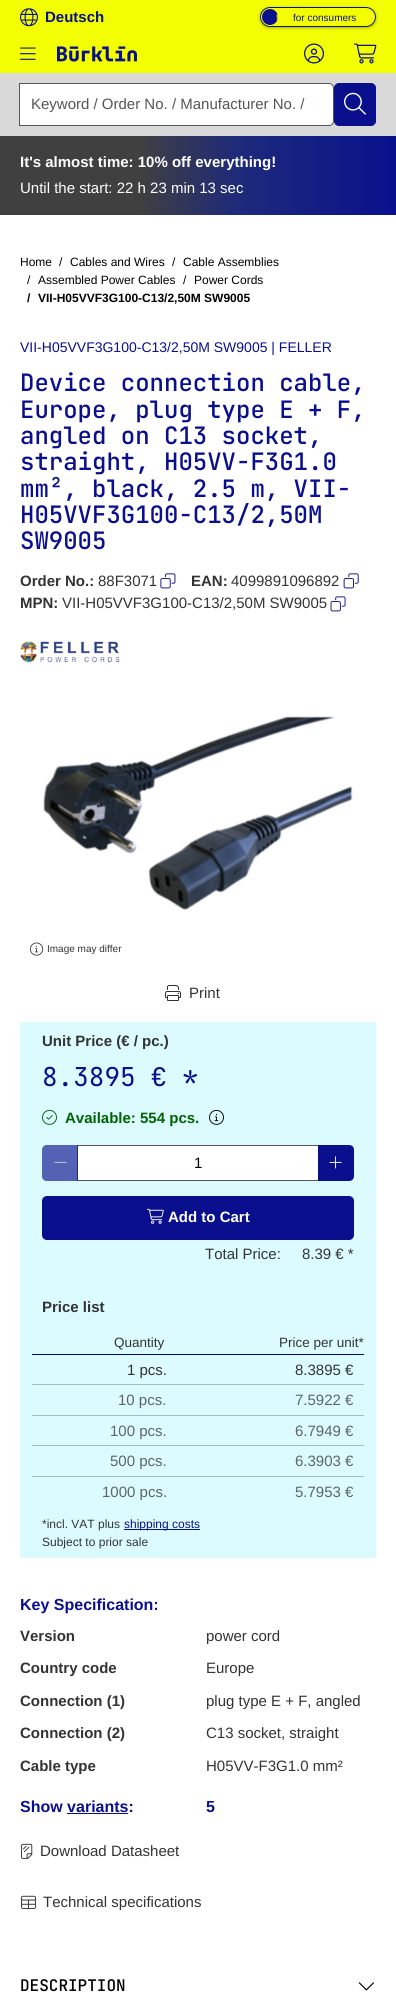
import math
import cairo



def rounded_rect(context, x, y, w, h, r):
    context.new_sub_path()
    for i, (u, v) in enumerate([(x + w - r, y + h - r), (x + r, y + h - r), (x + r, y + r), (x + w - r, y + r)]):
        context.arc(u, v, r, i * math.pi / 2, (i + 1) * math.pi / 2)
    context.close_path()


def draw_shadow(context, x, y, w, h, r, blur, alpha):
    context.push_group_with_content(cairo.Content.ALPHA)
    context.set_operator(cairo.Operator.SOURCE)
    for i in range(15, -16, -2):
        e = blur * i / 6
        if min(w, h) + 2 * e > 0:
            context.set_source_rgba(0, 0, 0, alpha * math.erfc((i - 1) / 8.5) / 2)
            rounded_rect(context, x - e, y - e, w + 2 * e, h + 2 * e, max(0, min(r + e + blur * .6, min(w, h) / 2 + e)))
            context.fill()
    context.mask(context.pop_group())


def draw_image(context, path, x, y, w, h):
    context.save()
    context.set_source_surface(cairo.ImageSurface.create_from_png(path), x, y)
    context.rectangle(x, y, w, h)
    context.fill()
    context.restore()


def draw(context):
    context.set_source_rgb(1, 1, 1)
    context.paint()
    context.set_source_rgb(243 / 255, 1, 0)
    context.rectangle(0, 0, 396, 73)
    context.fill()
    draw_image(context, "images/1.png", 20, 8, 18, 19)
    context.save()
    context.set_fill_rule(cairo.FillRule.EVEN_ODD)
    context.new_path()
    context.move_to(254, 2)
    context.line_to(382, 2)
    context.line_to(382, 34)
    context.line_to(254, 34)
    context.close_path()
    context.move_to(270, 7)
    context.line_to(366, 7)
    context.curve_to(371.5, 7, 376, 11.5, 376, 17)
    context.curve_to(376, 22.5, 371.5, 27, 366, 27)
    context.line_to(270, 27)
    context.curve_to(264.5, 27, 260, 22.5, 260, 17)
    context.curve_to(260, 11.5, 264.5, 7, 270, 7)
    context.close_path()
    context.clip()
    context.set_source_rgb(0, 0, 0)
    draw_shadow(context, 260, 8, 116, 20, 10, 1.5, 0.3)
    context.restore()
    rounded_rect(context, 260.5, 7.5, 115, 19, 9.5)
    context.set_source_rgb(10 / 255, 16 / 255, 141 / 255)
    context.set_line_width(1)
    context.stroke()
    context.arc(270, 17, 8, 0, 2 * math.pi)
    context.fill()
    draw_image(context, "images/2.png", 20, 47, 16, 13)
    draw_image(context, "images/3.png", 57, 46, 80, 16)
    draw_image(context, "images/4.png", 304, 43, 20, 21)
    draw_image(context, "images/5.png", 354, 43, 23, 21)
    context.set_source_rgb(217 / 255, 217 / 255, 217 / 255)
    context.rectangle(0, 73, 396, 63)
    context.fill()
    context.set_source_rgb(1, 1, 1)
    context.new_path()
    context.move_to(19.5, 83.5)
    context.line_to(329, 83.5)
    context.curve_to(331.5, 83.5, 333.5, 85.5, 333.5, 88)
    context.line_to(333.5, 121)
    context.curve_to(333.5, 123.5, 331.5, 125.5, 329, 125.5)
    context.line_to(19.5, 125.5)
    context.close_path()
    context.fill_preserve()
    context.set_source_rgb(86 / 255, 86 / 255, 86 / 255)
    context.stroke()
    context.set_source_rgb(10 / 255, 16 / 255, 141 / 255)
    rounded_rect(context, 334.5, 83.5, 41, 42, 4.5)
    context.fill_preserve()
    context.stroke()
    draw_image(context, "images/6.png", 344, 92, 22, 23)
    gradient = cairo.LinearGradient(0, 176, 396, 176)
    gradient.add_color_stop_rgba(0.35, 64 / 255, 64 / 255, 64 / 255, 1)
    gradient.add_color_stop_rgba(0.6, 30 / 255, 42 / 255, 122 / 255, 1)
    gradient.add_color_stop_rgba(1, 10 / 255, 16 / 255, 141 / 255, 1)
    context.set_source(gradient)
    context.rectangle(0, 136, 396, 79)
    context.fill()
    draw_image(context, "images/7.png", 160, 573, 16, 16)
    draw_image(context, "images/8.png", 343, 573, 16, 16)
    draw_image(context, "images/9.png", 330, 596, 16, 16)
    draw_image(context, "images/10.png", 20, 641, 100, 22)
    draw_image(context, "images/11.png", 43, 716, 310, 195)
    draw_image(context, "images/12.png", 30, 942, 14, 14)
    draw_image(context, "images/13.png", 165, 985, 16, 16)
    context.set_source_rgb(220 / 255, 251 / 255, 254 / 255)
    context.rectangle(20, 1022, 356, 536)
    context.fill()
    draw_image(context, "images/14.png", 42, 1109, 15, 16)
    draw_image(context, "images/15.png", 209, 1109, 15, 16)
    context.set_source_rgb(1, 1, 1)
    context.rectangle(77.5, 1145.5, 241, 35)
    context.fill_preserve()
    context.set_source_rgb(86 / 255, 86 / 255, 86 / 255)
    context.stroke()
    context.set_source_rgba(10 / 255, 16 / 255, 141 / 255, 0.65)
    context.new_path()
    context.move_to(47, 1145)
    context.line_to(78, 1145)
    context.line_to(78, 1181)
    context.line_to(47, 1181)
    context.curve_to(44, 1181, 42, 1179, 42, 1176)
    context.line_to(42, 1150)
    context.curve_to(42, 1147, 44, 1145, 47, 1145)
    context.close_path()
    context.fill()
    draw_image(context, "images/16.png", 54, 1161, 13, 2)
    context.set_source_rgb(10 / 255, 16 / 255, 141 / 255)
    context.new_path()
    context.move_to(318, 1145)
    context.line_to(349, 1145)
    context.curve_to(352, 1145, 354, 1147, 354, 1150)
    context.line_to(354, 1176)
    context.curve_to(354, 1179, 352, 1181, 349, 1181)
    context.line_to(318, 1181)
    context.close_path()
    context.fill()
    draw_image(context, "images/17.png", 329, 1156, 13, 13)
    rounded_rect(context, 42, 1196, 312, 44, 5)
    context.fill()
    draw_image(context, "images/18.png", 147, 1208, 17, 16)
    context.set_source_rgb(8 / 255, 12 / 255, 106 / 255)
    context.rectangle(32, 1354, 332, 1)
    context.fill()
    context.set_source_rgb(165 / 255, 188 / 255, 191 / 255)
    context.rectangle(32, 1384, 332, 1)
    context.fill()
    context.rectangle(32, 1415, 332, 1)
    context.fill()
    context.rectangle(32, 1445, 332, 1)
    context.fill()
    context.rectangle(32, 1476, 332, 1)
    context.fill()
    context.set_source_rgb(10 / 255, 16 / 255, 141 / 255)
    context.rectangle(124, 1529, 76, 1)
    context.fill()
    context.rectangle(67, 1813, 61, 1)
    context.fill()
    draw_image(context, "images/19.png", 21, 1843, 12, 16)
    draw_image(context, "images/20.png", 21, 1895, 15, 14)
    draw_image(context, "images/21.png", 358, 1982, 16, 9)
    context.select_font_face("Liberation Sans", cairo.FontSlant.NORMAL, cairo.FontWeight.BOLD)
    context.set_font_size(15)
    context.move_to(45, 22)
    context.show_text("Deutsch")
    context.select_font_face("Liberation Sans")
    context.set_font_size(10)
    context.set_source_rgb(234 / 255, 245 / 255, 6 / 255)
    context.move_to(276, 21)
    context.show_text("f")
    context.set_source_rgb(10 / 255, 16 / 255, 141 / 255)
    context.move_to(293, 21)
    context.show_text("for consumers")
    context.set_font_size(15)
    context.set_source_rgb(86 / 255, 86 / 255, 86 / 255)
    context.move_to(31, 109)
    context.show_text("Keyword / Order No. / Manufacturer No. /")
    context.select_font_face("Liberation Sans", cairo.FontSlant.NORMAL, cairo.FontWeight.BOLD)
    context.set_source_rgb(1, 1, 1)
    context.move_to(20, 167)
    context.show_text("It's almost time: 10% off everything!")
    context.select_font_face("Liberation Sans")
    context.move_to(20, 193)
    context.show_text("Until the start: 22 h 23 min 13 sec")
    context.set_font_size(12)
    context.set_source_rgb(0, 0, 0)
    context.move_to(20, 266)
    context.show_text("Home")
    context.move_to(59, 266)
    context.show_text("/")
    context.move_to(70, 266)
    context.show_text("Cables and Wires")
    context.move_to(172, 266)
    context.show_text("/")
    context.move_to(183, 266)
    context.show_text("Cable Assemblies")
    context.move_to(27, 284)
    context.show_text("/")
    context.move_to(38, 284)
    context.show_text("Assembled Power Cables")
    context.move_to(183, 284)
    context.show_text("/")
    context.move_to(194, 284)
    context.show_text("Power Cords")
    context.select_font_face("Liberation Sans", cairo.FontSlant.NORMAL, cairo.FontWeight.BOLD)
    context.move_to(27, 302)
    context.show_text("/")
    context.move_to(38, 302)
    context.show_text("VII-H05VVF3G100-C13/2,50M SW9005")
    context.select_font_face("Liberation Sans")
    context.set_font_size(14)
    context.set_source_rgb(10 / 255, 16 / 255, 141 / 255)
    context.move_to(20, 352)
    context.show_text("VII-H05VVF3G100-C13/2,50M SW9005 | FELLER")
    context.select_font_face("JetBrains Mono Medium")
    context.set_font_size(24)
    context.move_to(20, 391)
    context.show_text("Device connection cable,")
    context.move_to(20, 418)
    context.show_text("Europe, plug type E + F,")
    context.move_to(20, 444)
    context.show_text("angled on C13 socket,")
    context.move_to(20, 470)
    context.show_text("straight, H05VV-F3G1.0")
    context.move_to(20, 497)
    context.show_text("mm², black, 2.5 m, VII-")
    context.move_to(20, 523)
    context.show_text("H05VVF3G100-C13/2,50M")
    context.move_to(20, 549)
    context.show_text("SW9005")
    context.select_font_face("Liberation Sans", cairo.FontSlant.NORMAL, cairo.FontWeight.BOLD)
    context.set_font_size(15)
    context.set_source_rgb(51 / 255, 51 / 255, 51 / 255)
    context.move_to(20, 586)
    context.show_text("Order No.:")
    context.select_font_face("Liberation Sans")
    context.move_to(98, 586)
    context.show_text("88F3071")
    context.select_font_face("Liberation Sans", cairo.FontSlant.NORMAL, cairo.FontWeight.BOLD)
    context.move_to(191, 586)
    context.show_text("EAN:")
    context.select_font_face("Liberation Sans")
    context.move_to(231, 586)
    context.show_text("4099891096892")
    context.select_font_face("Liberation Sans", cairo.FontSlant.NORMAL, cairo.FontWeight.BOLD)
    context.move_to(20, 608)
    context.show_text("MPN:")
    context.select_font_face("Liberation Sans")
    context.move_to(62, 608)
    context.show_text("VII-H05VVF3G100-C13/2,50M SW9005")
    context.set_font_size(10)
    context.move_to(47, 952)
    context.show_text("Image may differ")
    context.set_font_size(15)
    context.move_to(189, 998)
    context.show_text("Print")
    context.select_font_face("Liberation Sans", cairo.FontSlant.NORMAL, cairo.FontWeight.BOLD)
    context.move_to(42, 1046)
    context.show_text("Unit Price (€ / pc.)")
    context.select_font_face("JetBrains Mono")
    context.set_font_size(26)
    context.set_source_rgb(10 / 255, 16 / 255, 141 / 255)
    context.move_to(42, 1086)
    context.show_text("8.3895 € *")
    context.select_font_face("Liberation Sans", cairo.FontSlant.NORMAL, cairo.FontWeight.BOLD)
    context.set_font_size(15)
    context.set_source_rgb(0, 100 / 255, 0)
    context.move_to(65, 1123)
    context.show_text("Available: 554 pcs.")
    context.select_font_face("Liberation Sans")
    context.set_source_rgb(0, 0, 0)
    context.move_to(194, 1168)
    context.show_text("1")
    context.select_font_face("Liberation Sans", cairo.FontSlant.NORMAL, cairo.FontWeight.BOLD)
    context.set_source_rgb(1, 1, 1)
    context.move_to(168, 1222)
    context.show_text("Add to Cart")
    context.select_font_face("Liberation Sans")
    context.set_source_rgb(51 / 255, 51 / 255, 51 / 255)
    context.move_to(205, 1259)
    context.show_text("Total Price:")
    context.move_to(302, 1259)
    context.show_text("8.39 € *")
    context.select_font_face("Liberation Sans", cairo.FontSlant.NORMAL, cairo.FontWeight.BOLD)
    context.move_to(42, 1312)
    context.show_text("Price list")
    context.select_font_face("Liberation Sans")
    context.set_font_size(13.5)
    context.move_to(114, 1347)
    context.show_text("Quantity")
    context.move_to(279, 1347)
    context.show_text("Price per unit*")
    context.set_font_size(15)
    context.move_to(127, 1375)
    context.show_text("1 pcs.")
    context.move_to(295, 1375)
    context.show_text("8.3895 €")
    context.set_source_rgb(93 / 255, 101 / 255, 102 / 255)
    context.move_to(118, 1405)
    context.show_text("10 pcs.")
    context.move_to(295, 1405)
    context.show_text("7.5922 €")
    context.move_to(110, 1436)
    context.show_text("100 pcs.")
    context.move_to(295, 1436)
    context.show_text("6.7949 €")
    context.move_to(110, 1466)
    context.show_text("500 pcs.")
    context.move_to(295, 1466)
    context.show_text("6.3903 €")
    context.move_to(102, 1497)
    context.show_text("1000 pcs.")
    context.move_to(295, 1497)
    context.show_text("5.7953 €")
    context.set_font_size(12)
    context.set_source_rgb(51 / 255, 51 / 255, 51 / 255)
    context.move_to(42, 1528)
    context.show_text("*incl. VAT plus")
    context.set_source_rgb(10 / 255, 16 / 255, 141 / 255)
    context.move_to(124, 1528)
    context.show_text("shipping costs")
    context.set_source_rgb(51 / 255, 51 / 255, 51 / 255)
    context.move_to(42, 1546)
    context.show_text("Subject to prior sale")
    context.select_font_face("Liberation Sans", cairo.FontSlant.NORMAL, cairo.FontWeight.BOLD)
    context.set_font_size(16)
    context.set_source_rgb(10 / 255, 16 / 255, 141 / 255)
    context.move_to(20, 1610)
    context.show_text("Key Specification:")
    context.set_font_size(15)
    context.set_source_rgb(51 / 255, 51 / 255, 51 / 255)
    context.move_to(20, 1641)
    context.show_text("Version")
    context.select_font_face("Liberation Sans")
    context.move_to(206, 1641)
    context.show_text("power cord")
    context.select_font_face("Liberation Sans", cairo.FontSlant.NORMAL, cairo.FontWeight.BOLD)
    context.move_to(20, 1673)
    context.show_text("Country code")
    context.select_font_face("Liberation Sans")
    context.move_to(206, 1673)
    context.show_text("Europe")
    context.select_font_face("Liberation Sans", cairo.FontSlant.NORMAL, cairo.FontWeight.BOLD)
    context.move_to(20, 1706)
    context.show_text("Connection (1)")
    context.select_font_face("Liberation Sans")
    context.move_to(206, 1706)
    context.show_text("plug type E + F, angled")
    context.select_font_face("Liberation Sans", cairo.FontSlant.NORMAL, cairo.FontWeight.BOLD)
    context.move_to(20, 1738)
    context.show_text("Connection (2)")
    context.select_font_face("Liberation Sans")
    context.move_to(206, 1738)
    context.show_text("C13 socket, straight")
    context.select_font_face("Liberation Sans", cairo.FontSlant.NORMAL, cairo.FontWeight.BOLD)
    context.move_to(20, 1771)
    context.show_text("Cable type")
    context.select_font_face("Liberation Sans")
    context.move_to(206, 1771)
    context.show_text("H05VV-F3G1.0 mm²")
    context.select_font_face("Liberation Sans", cairo.FontSlant.NORMAL, cairo.FontWeight.BOLD)
    context.set_font_size(16)
    context.set_source_rgb(10 / 255, 16 / 255, 141 / 255)
    context.move_to(20, 1812)
    context.show_text("Show variants:")
    context.move_to(206, 1812)
    context.show_text("5")
    context.select_font_face("Liberation Sans")
    context.set_font_size(15)
    context.set_source_rgb(51 / 255, 51 / 255, 51 / 255)
    context.move_to(40, 1856)
    context.show_text("Download Datasheet")
    context.move_to(43, 1907)
    context.show_text("Technical specifications")
    context.select_font_face("JetBrains Mono Medium")
    context.set_font_size(16)
    context.set_source_rgb(0, 0, 0)
    context.move_to(20, 1991)
    context.show_text("DESCRIPTION")


surface = cairo.ImageSurface(cairo.Format.RGB24, 396, 2015)
context = cairo.Context(surface)
options = cairo.FontOptions()
options.set_hint_metrics(cairo.HintMetrics.OFF)
options.set_hint_style(cairo.HintStyle.NONE)
context.set_font_options(options)
context.set_miter_limit(4)
draw(context)
surface.write_to_png("out.png")
